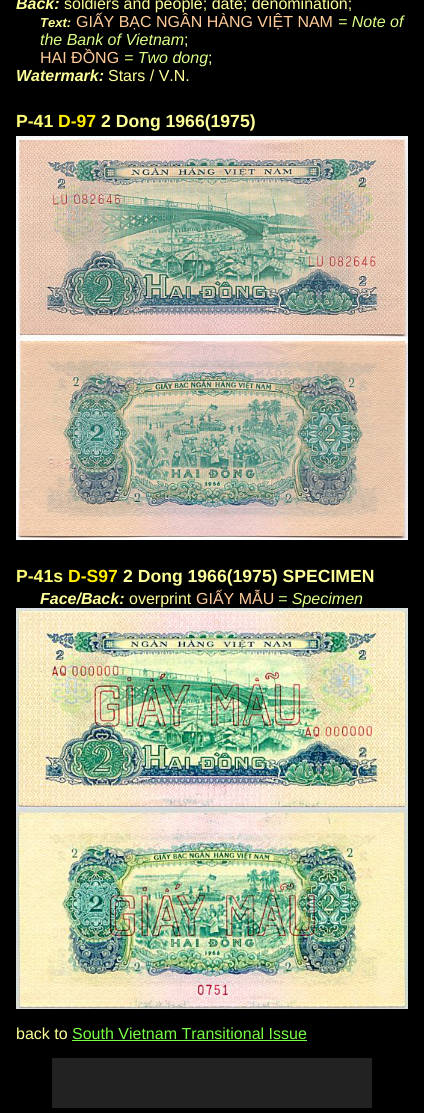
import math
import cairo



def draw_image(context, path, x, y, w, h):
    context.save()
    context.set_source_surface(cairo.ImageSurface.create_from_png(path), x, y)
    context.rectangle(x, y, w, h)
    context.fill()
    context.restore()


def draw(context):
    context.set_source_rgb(0, 0, 0)
    context.paint()
    draw_image(context, "images/1.png", 16, 136, 392, 202)
    draw_image(context, "images/2.png", 16, 338, 392, 202)
    draw_image(context, "images/3.png", 16, 608, 392, 201)
    draw_image(context, "images/4.png", 16, 809, 392, 200)
    context.set_source_rgb(119 / 255, 1, 68 / 255)
    context.rectangle(72, 1040, 235, 1)
    context.fill()
    context.set_source_rgb(34 / 255, 34 / 255, 34 / 255)
    context.rectangle(52, 1058, 320, 50)
    context.fill()
    context.select_font_face("Liberation Sans", cairo.FontSlant.ITALIC, cairo.FontWeight.BOLD)
    context.set_font_size(16)
    context.set_source_rgb(1, 1, 153 / 255)
    context.move_to(16, 9)
    context.show_text("Back:")
    context.select_font_face("Liberation Sans")
    context.move_to(64, 9)
    context.show_text("soldiers and people; date; denomination;")
    context.select_font_face("Liberation Sans", cairo.FontSlant.ITALIC, cairo.FontWeight.BOLD)
    context.set_font_size(13)
    context.move_to(40, 27)
    context.show_text("Text:")
    context.select_font_face("Liberation Sans")
    context.set_font_size(16)
    context.set_source_rgb(1, 204 / 255, 153 / 255)
    context.move_to(76, 27)
    context.show_text("GIẤY BẠC NGÂN HÀNG VIỆT NAM")
    context.select_font_face("Liberation Sans", cairo.FontSlant.ITALIC)
    context.set_source_rgb(221 / 255, 1, 136 / 255)
    context.move_to(338, 27)
    context.show_text("= Note of")
    context.move_to(40, 45)
    context.show_text("the Bank of Vietnam")
    context.select_font_face("Liberation Sans")
    context.set_source_rgb(1, 1, 153 / 255)
    context.move_to(184, 45)
    context.show_text(";")
    context.set_source_rgb(1, 204 / 255, 153 / 255)
    context.move_to(40, 63)
    context.show_text("HAI ĐỒNG")
    context.select_font_face("Liberation Sans", cairo.FontSlant.ITALIC)
    context.set_source_rgb(221 / 255, 1, 136 / 255)
    context.move_to(124, 63)
    context.show_text("= Two dong")
    context.select_font_face("Liberation Sans")
    context.set_source_rgb(1, 1, 153 / 255)
    context.move_to(208, 63)
    context.show_text(";")
    context.select_font_face("Liberation Sans", cairo.FontSlant.ITALIC, cairo.FontWeight.BOLD)
    context.move_to(16, 81)
    context.show_text("Watermark:")
    context.select_font_face("Liberation Sans")
    context.move_to(108, 81)
    context.show_text("Stars / V.N.")
    context.select_font_face("Liberation Sans", cairo.FontSlant.NORMAL, cairo.FontWeight.BOLD)
    context.set_font_size(17.6)
    context.set_source_rgb(1, 1, 119 / 255)
    context.move_to(16, 127)
    context.show_text("P-41")
    context.set_source_rgb(1, 238 / 255, 0)
    context.move_to(58, 127)
    context.show_text("D-97")
    context.set_source_rgb(1, 1, 153 / 255)
    context.move_to(101, 127)
    context.show_text("2 Dong 1966(1975)")
    context.set_source_rgb(1, 1, 119 / 255)
    context.move_to(16, 582)
    context.show_text("P-41s")
    context.set_source_rgb(1, 238 / 255, 0)
    context.move_to(68, 582)
    context.show_text("D-S97")
    context.set_source_rgb(1, 1, 153 / 255)
    context.move_to(123, 582)
    context.show_text("2 Dong 1966(1975) SPECIMEN")
    context.select_font_face("Liberation Sans", cairo.FontSlant.ITALIC, cairo.FontWeight.BOLD)
    context.set_font_size(16)
    context.move_to(40, 604)
    context.show_text("Face/Back:")
    context.select_font_face("Liberation Sans")
    context.move_to(129, 604)
    context.show_text("overprint")
    context.set_source_rgb(1, 204 / 255, 153 / 255)
    context.move_to(196, 604)
    context.show_text("GIẤY MẪU")
    context.select_font_face("Liberation Sans", cairo.FontSlant.ITALIC)
    context.set_source_rgb(221 / 255, 1, 136 / 255)
    context.move_to(278, 604)
    context.show_text("= Specimen")
    context.select_font_face("Liberation Sans")
    context.set_source_rgb(1, 1, 153 / 255)
    context.move_to(16, 1039)
    context.show_text("back to")
    context.set_source_rgb(119 / 255, 1, 68 / 255)
    context.move_to(72, 1039)
    context.show_text("South Vietnam Transitional Issue")


surface = cairo.ImageSurface(cairo.Format.RGB24, 424, 1113)
context = cairo.Context(surface)
options = cairo.FontOptions()
options.set_hint_metrics(cairo.HintMetrics.OFF)
options.set_hint_style(cairo.HintStyle.NONE)
context.set_font_options(options)
context.set_miter_limit(4)
draw(context)
surface.write_to_png("out.png")
